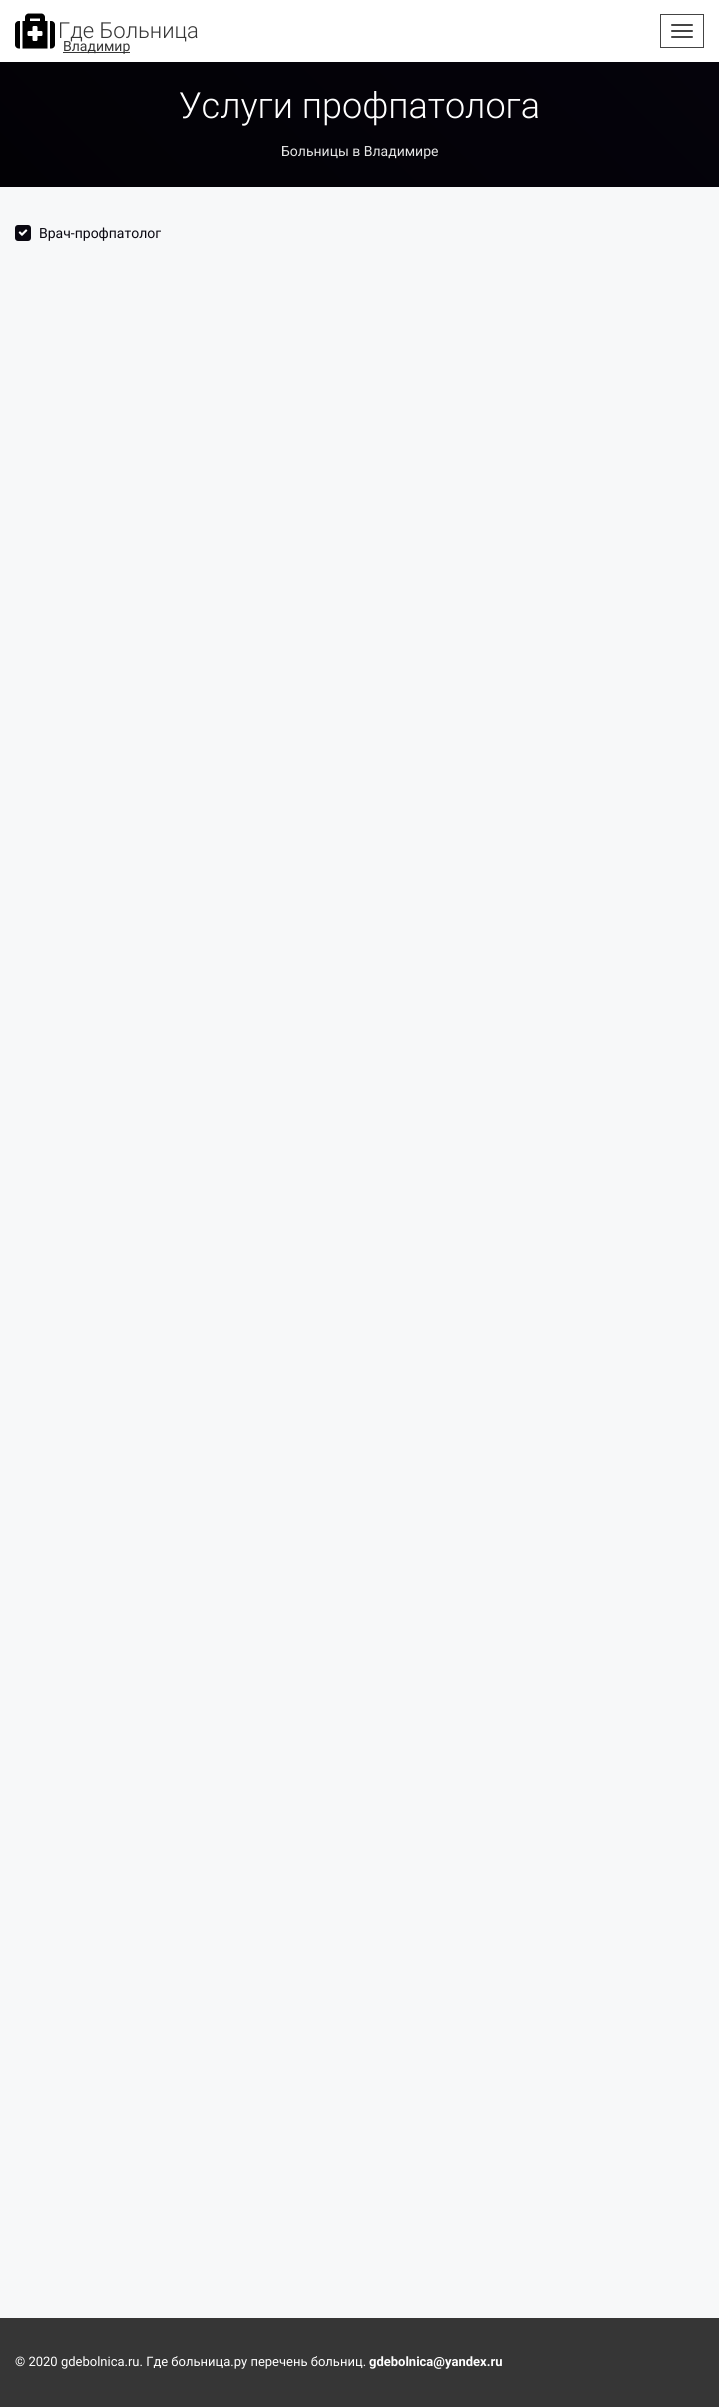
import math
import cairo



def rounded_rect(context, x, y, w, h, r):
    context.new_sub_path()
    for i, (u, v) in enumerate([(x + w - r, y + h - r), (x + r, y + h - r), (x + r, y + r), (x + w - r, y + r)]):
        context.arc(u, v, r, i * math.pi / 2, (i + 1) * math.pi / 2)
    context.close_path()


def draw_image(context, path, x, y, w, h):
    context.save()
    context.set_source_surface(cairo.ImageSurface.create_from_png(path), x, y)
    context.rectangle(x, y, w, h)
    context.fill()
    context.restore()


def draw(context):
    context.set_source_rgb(247 / 255, 248 / 255, 249 / 255)
    context.paint()
    context.set_source_rgb(1, 1, 1)
    context.rectangle(0, 0, 719, 62)
    context.fill()
    draw_image(context, "images/1.png", 15, 13, 40, 36)
    context.set_source_rgb(54 / 255, 54 / 255, 54 / 255)
    context.rectangle(63, 52, 67, 1)
    context.fill()
    context.rectangle(660.5, 14.5, 43, 33)
    context.set_source_rgb(68 / 255, 68 / 255, 68 / 255)
    context.set_line_width(1)
    context.stroke()
    rounded_rect(context, 671, 24, 22, 2, 1)
    context.fill()
    rounded_rect(context, 671, 30, 22, 2, 1)
    context.fill()
    rounded_rect(context, 671, 36, 22, 2, 1)
    context.fill()
    gradient = cairo.LinearGradient(-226, 711, 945, -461)
    gradient.add_color_stop_rgba(0, 0, 0, 0, 1)
    gradient.add_color_stop_rgba(1, 7 / 255, 4 / 255, 16 / 255, 1)
    context.set_source(gradient)
    context.rectangle(0, 62, 719, 125)
    context.fill()
    context.set_source_rgb(10 / 255, 8 / 255, 17 / 255)
    rounded_rect(context, 16, 226, 14, 14, 2)
    context.fill_preserve()
    context.set_line_width(2)
    context.stroke()
    draw_image(context, "images/2.png", 18, 229, 10, 7)
    context.set_source_rgb(54 / 255, 54 / 255, 54 / 255)
    context.rectangle(0, 2318, 719, 89)
    context.fill()
    context.select_font_face("Roboto Light")
    context.set_font_size(22)
    context.move_to(58, 38)
    context.show_text("Где Больница")
    context.select_font_face("Roboto")
    context.set_font_size(14)
    context.move_to(63, 51)
    context.show_text("Владимир")
    context.select_font_face("Roboto Light")
    context.set_font_size(36)
    context.set_source_rgb(1, 1, 1)
    context.move_to(179, 118)
    context.show_text("Услуги профпатолога")
    context.select_font_face("Roboto")
    context.set_font_size(14)
    context.set_source_rgb(230 / 255, 230 / 255, 230 / 255)
    context.move_to(281, 156)
    context.show_text("Больницы в Владимире")
    context.set_source_rgb(10 / 255, 8 / 255, 17 / 255)
    context.move_to(39, 238)
    context.show_text("Врач-профпатолог")
    context.set_font_size(13)
    context.set_source_rgb(1, 1, 1)
    context.move_to(15, 2366)
    context.show_text("© 2020 gdebolnica.ru. Где больница.ру перечень больниц.")
    context.select_font_face("Roboto", cairo.FontSlant.NORMAL, cairo.FontWeight.BOLD)
    context.move_to(369, 2366)
    context.show_text("gdebolnica@yandex.ru")


surface = cairo.ImageSurface(cairo.Format.RGB24, 719, 2407)
context = cairo.Context(surface)
options = cairo.FontOptions()
options.set_hint_metrics(cairo.HintMetrics.OFF)
options.set_hint_style(cairo.HintStyle.NONE)
context.set_font_options(options)
context.set_miter_limit(4)
draw(context)
surface.write_to_png("out.png")
